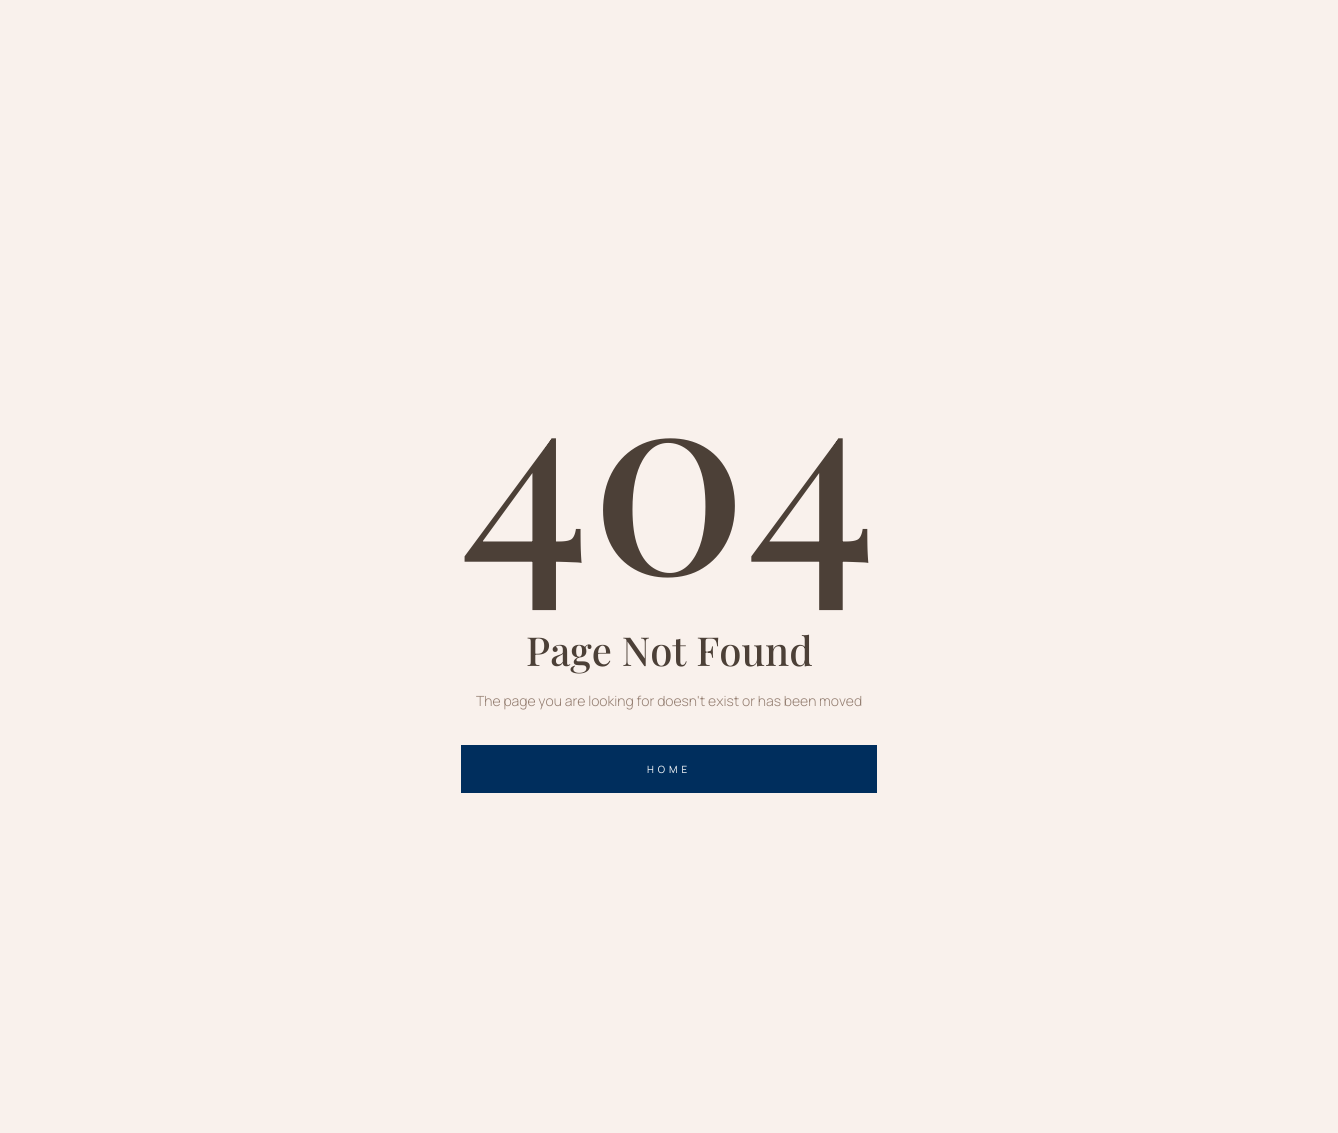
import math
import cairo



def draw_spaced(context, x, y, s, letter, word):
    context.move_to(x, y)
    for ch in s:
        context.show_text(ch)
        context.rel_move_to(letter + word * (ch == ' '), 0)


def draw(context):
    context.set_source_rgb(249 / 255, 241 / 255, 236 / 255)
    context.paint()
    context.set_source_rgb(0, 46 / 255, 93 / 255)
    context.rectangle(461, 745, 416, 48)
    context.fill()
    context.select_font_face("Playfair Display Medium")
    context.set_font_size(256)
    context.set_source_rgb(76 / 255, 64 / 255, 55 / 255)
    context.move_to(461, 574)
    context.show_text("404")
    context.set_font_size(40)
    context.move_to(526, 666)
    context.show_text("Page Not Found")
    context.select_font_face("Manrope Light")
    context.set_font_size(14)
    context.set_source_rgb(149 / 255, 127 / 255, 114 / 255)
    context.move_to(476, 706)
    context.show_text("The page you are looking for doesn't exist or has been moved")
    context.select_font_face("Manrope")
    context.set_font_size(10)
    context.set_source_rgb(1, 1, 1)
    draw_spaced(context, 647, 773, "HOME", 4, 0)


surface = cairo.ImageSurface(cairo.Format.RGB24, 1338, 1133)
context = cairo.Context(surface)
options = cairo.FontOptions()
options.set_hint_metrics(cairo.HintMetrics.OFF)
options.set_hint_style(cairo.HintStyle.NONE)
context.set_font_options(options)
context.set_miter_limit(4)
draw(context)
surface.write_to_png("out.png")
